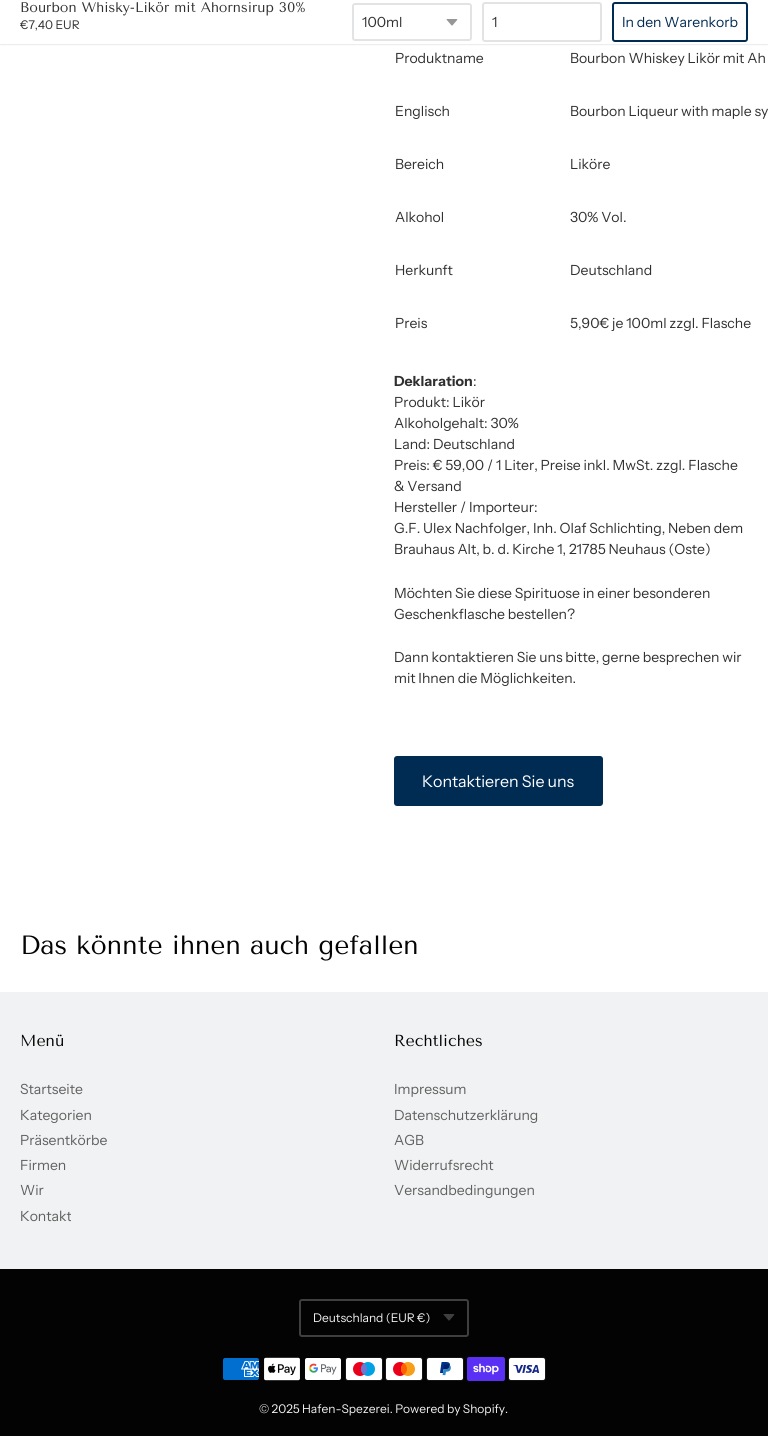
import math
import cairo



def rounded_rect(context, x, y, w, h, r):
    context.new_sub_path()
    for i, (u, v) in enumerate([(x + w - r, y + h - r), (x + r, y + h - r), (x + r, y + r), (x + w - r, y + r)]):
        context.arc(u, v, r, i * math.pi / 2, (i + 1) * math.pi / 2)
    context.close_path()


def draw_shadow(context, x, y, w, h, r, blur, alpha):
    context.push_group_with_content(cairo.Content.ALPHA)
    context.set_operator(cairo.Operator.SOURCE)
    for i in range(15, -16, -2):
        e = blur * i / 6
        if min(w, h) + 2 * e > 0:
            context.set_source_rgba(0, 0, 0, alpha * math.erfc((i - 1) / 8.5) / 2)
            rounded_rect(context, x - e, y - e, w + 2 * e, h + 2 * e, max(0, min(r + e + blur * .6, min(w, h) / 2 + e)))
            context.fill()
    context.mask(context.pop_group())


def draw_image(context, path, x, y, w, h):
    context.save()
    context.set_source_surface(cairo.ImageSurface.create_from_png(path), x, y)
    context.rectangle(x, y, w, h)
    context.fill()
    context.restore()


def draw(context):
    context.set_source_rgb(1, 1, 1)
    context.paint()
    context.set_source_rgb(0, 0, 0)
    draw_shadow(context, 0, 0, 768, 44, 0, 1, 0.2)
    context.set_source_rgb(1, 1, 1)
    context.rectangle(0, 0, 768, 44)
    context.fill()
    draw_image(context, "images/1.png", 446, 19, 12, 7)
    rounded_rect(context, 353, 4, 118, 36, 2)
    context.set_source_rgb(225 / 255, 227 / 255, 228 / 255)
    context.stroke()
    rounded_rect(context, 483, 3, 118, 38, 2)
    context.stroke()
    rounded_rect(context, 613, 3, 134, 38, 2)
    context.set_source_rgb(0, 43 / 255, 83 / 255)
    context.stroke()
    rounded_rect(context, 395, 757, 207, 48, 2)
    context.fill_preserve()
    context.stroke()
    context.set_source_rgb(241 / 255, 242 / 255, 243 / 255)
    context.rectangle(0, 992, 768, 277)
    context.fill()
    context.set_source_rgb(3 / 255, 3 / 255, 3 / 255)
    context.rectangle(0, 1269, 768, 167)
    context.fill()
    draw_image(context, "images/2.png", 443, 1314, 12, 7)
    rounded_rect(context, 300, 1300, 168, 36, 2)
    context.set_source_rgb(63 / 255, 63 / 255, 63 / 255)
    context.stroke()
    draw_image(context, "images/3.png", 223, 1358, 36, 22)
    draw_image(context, "images/4.png", 264, 1357, 36, 24)
    draw_image(context, "images/5.png", 305, 1358, 36, 22)
    draw_image(context, "images/6.png", 345, 1357, 38, 24)
    draw_image(context, "images/7.png", 385, 1357, 38, 24)
    draw_image(context, "images/8.png", 426, 1357, 38, 24)
    draw_image(context, "images/9.png", 467, 1357, 38, 24)
    draw_image(context, "images/10.png", 508, 1357, 38, 24)
    context.select_font_face("Tenor Sans")
    context.set_font_size(14)
    context.set_source_rgb(48 / 255, 48 / 255, 48 / 255)
    context.move_to(20, 12)
    context.show_text("Bourbon Whisky-Likör mit Ahornsirup 30%")
    context.select_font_face("Instrument Sans")
    context.set_font_size(12)
    context.move_to(20, 29)
    context.show_text("€7,40 EUR")
    context.set_font_size(14)
    context.move_to(362, 27)
    context.show_text("100ml")
    context.move_to(492, 27)
    context.show_text("1")
    context.set_source_rgb(0, 43 / 255, 83 / 255)
    context.move_to(622, 27)
    context.show_text("In den Warenkorb")
    context.set_source_rgb(48 / 255, 48 / 255, 48 / 255)
    context.move_to(395, 63)
    context.show_text("Produktname")
    context.move_to(570, 63)
    context.show_text("Bourbon Whiskey Likör mit Ah")
    context.move_to(395, 116)
    context.show_text("Englisch")
    context.move_to(570, 116)
    context.show_text("Bourbon Liqueur with maple sy")
    context.move_to(395, 169)
    context.show_text("Bereich")
    context.move_to(570, 169)
    context.show_text("Liköre")
    context.move_to(395, 222)
    context.show_text("Alkohol")
    context.move_to(570, 222)
    context.show_text("30% Vol.")
    context.move_to(395, 275)
    context.show_text("Herkunft")
    context.move_to(570, 275)
    context.show_text("Deutschland")
    context.move_to(395, 328)
    context.show_text("Preis")
    context.move_to(570, 328)
    context.show_text("5,90€ je 100ml zzgl. Flasche")
    context.select_font_face("Instrument Sans", cairo.FontSlant.NORMAL, cairo.FontWeight.BOLD)
    context.move_to(394, 386)
    context.show_text("Deklaration")
    context.select_font_face("Instrument Sans")
    context.move_to(473, 386)
    context.show_text(":")
    context.move_to(394, 407)
    context.show_text("Produkt: Likör")
    context.move_to(394, 428)
    context.show_text("Alkoholgehalt: 30%")
    context.move_to(394, 449)
    context.show_text("Land: Deutschland")
    context.move_to(394, 470)
    context.show_text("Preis: € 59,00 / 1 Liter, Preise inkl. MwSt. zzgl. Flasche")
    context.move_to(394, 491)
    context.show_text("& Versand")
    context.move_to(394, 512)
    context.show_text("Hersteller / Importeur:")
    context.move_to(394, 533)
    context.show_text("G.F. Ulex Nachfolger, Inh. Olaf Schlichting, Neben dem")
    context.move_to(394, 554)
    context.show_text("Brauhaus Alt, b. d. Kirche 1, 21785 Neuhaus (Oste)")
    context.move_to(394, 598)
    context.show_text("Möchten Sie diese Spirituose in einer besonderen")
    context.move_to(394, 619)
    context.show_text("Geschenkflasche bestellen?")
    context.move_to(394, 662)
    context.show_text("Dann kontaktieren Sie uns bitte, gerne besprechen wir")
    context.move_to(394, 683)
    context.show_text("mit Ihnen die Möglichkeiten.")
    context.set_font_size(16)
    context.set_source_rgb(1, 1, 1)
    context.move_to(422, 787)
    context.show_text("Kontaktieren Sie uns")
    context.select_font_face("Tenor Sans")
    context.set_font_size(26.4)
    context.set_source_rgb(3 / 255, 3 / 255, 3 / 255)
    context.move_to(20, 954)
    context.show_text("Das könnte ihnen auch gefallen")
    context.set_font_size(16)
    context.move_to(20, 1046)
    context.show_text("Menü")
    context.select_font_face("Instrument Sans")
    context.set_font_size(14)
    context.set_source_rgb(96 / 255, 96 / 255, 96 / 255)
    context.move_to(20, 1094)
    context.show_text("Startseite")
    context.move_to(20, 1120)
    context.show_text("Kategorien")
    context.move_to(20, 1145)
    context.show_text("Präsentkörbe")
    context.move_to(20, 1170)
    context.show_text("Firmen")
    context.move_to(20, 1195)
    context.show_text("Wir")
    context.move_to(20, 1221)
    context.show_text("Kontakt")
    context.select_font_face("Tenor Sans")
    context.set_font_size(16)
    context.set_source_rgb(3 / 255, 3 / 255, 3 / 255)
    context.move_to(394, 1046)
    context.show_text("Rechtliches")
    context.select_font_face("Instrument Sans")
    context.set_font_size(14)
    context.set_source_rgb(96 / 255, 96 / 255, 96 / 255)
    context.move_to(394, 1094)
    context.show_text("Impressum")
    context.move_to(394, 1120)
    context.show_text("Datenschutzerklärung")
    context.move_to(394, 1145)
    context.show_text("AGB")
    context.move_to(394, 1170)
    context.show_text("Widerrufsrecht")
    context.move_to(394, 1195)
    context.show_text("Versandbedingungen")
    context.set_font_size(12)
    context.set_source_rgb(241 / 255, 242 / 255, 243 / 255)
    context.move_to(313, 1322)
    context.show_text("Deutschland (EUR €)")
    context.move_to(259, 1413)
    context.show_text("© 2025 Hafen-Spezerei. Powered by Shopify.")


surface = cairo.ImageSurface(cairo.Format.RGB24, 768, 1436)
context = cairo.Context(surface)
options = cairo.FontOptions()
options.set_hint_metrics(cairo.HintMetrics.OFF)
options.set_hint_style(cairo.HintStyle.NONE)
context.set_font_options(options)
context.set_miter_limit(4)
draw(context)
surface.write_to_png("out.png")
